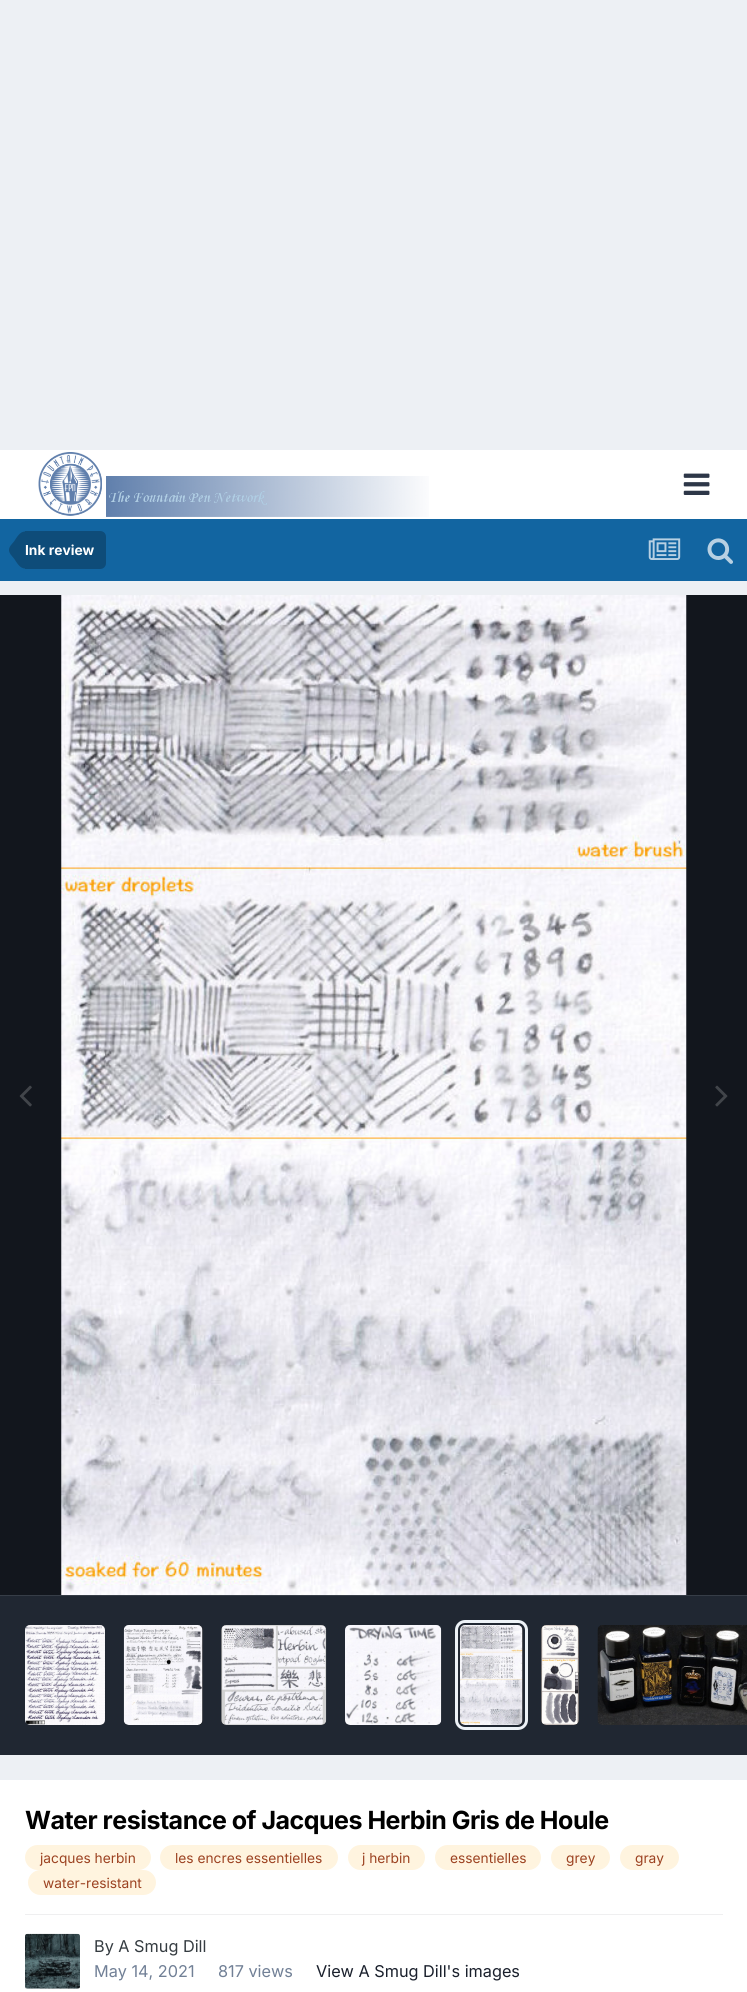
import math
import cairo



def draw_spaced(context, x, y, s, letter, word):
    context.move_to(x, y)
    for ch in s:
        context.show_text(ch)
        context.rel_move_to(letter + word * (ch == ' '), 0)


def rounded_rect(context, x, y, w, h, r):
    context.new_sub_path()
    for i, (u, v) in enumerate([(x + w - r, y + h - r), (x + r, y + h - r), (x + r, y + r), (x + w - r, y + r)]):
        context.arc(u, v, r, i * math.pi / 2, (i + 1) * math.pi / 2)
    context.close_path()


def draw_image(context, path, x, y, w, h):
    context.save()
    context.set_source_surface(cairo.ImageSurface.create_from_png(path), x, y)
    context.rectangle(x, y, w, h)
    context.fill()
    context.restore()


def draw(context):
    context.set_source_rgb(237 / 255, 240 / 255, 244 / 255)
    context.paint()
    context.set_source_rgb(1, 1, 1)
    context.rectangle(0, 450, 747, 69)
    context.fill()
    draw_image(context, "images/1.png", 38, 452, 391, 65)
    draw_image(context, "images/2.png", 683, 473, 27, 22)
    context.set_source_rgb(18 / 255, 101 / 255, 161 / 255)
    context.rectangle(0, 519, 747, 62)
    context.fill()
    context.set_source_rgb(14 / 255, 76 / 255, 121 / 255)
    context.new_path()
    context.move_to(25, 531)
    context.line_to(100, 531)
    context.curve_to(103.5, 531, 106, 533.5, 106, 537)
    context.line_to(106, 563)
    context.curve_to(106, 566.5, 103.5, 569, 100, 569)
    context.line_to(25, 569)
    context.close_path()
    context.fill()
    context.new_path()
    context.move_to(25, 550)
    context.line_to(25, 568.5)
    context.curve_to(19.5, 568.5, 16.5, 562, 14, 558.5)
    context.curve_to(12, 556, 9, 553.5, 9, 550)
    context.close_path()
    context.move_to(25, 550)
    context.line_to(9, 550)
    context.curve_to(9, 546.5, 12, 544, 14, 541.5)
    context.curve_to(16.5, 538, 19.5, 531.5, 25, 531.5)
    context.close_path()
    context.fill()
    draw_image(context, "images/3.png", 648, 538, 33, 22)
    draw_image(context, "images/4.png", 707, 538, 26, 26)
    context.set_source_rgb(18 / 255, 22 / 255, 29 / 255)
    context.rectangle(0, 595, 747, 1000)
    context.fill()
    draw_image(context, "images/5.png", 61, 595, 626, 1000)
    draw_image(context, "images/6.png", 19, 1085, 13, 22)
    draw_image(context, "images/7.png", 715, 1085, 13, 22)
    context.set_source_rgb(32 / 255, 39 / 255, 50 / 255)
    context.rectangle(0, 1596, 747, 159)
    context.fill()
    context.set_source_rgb(54 / 255, 61 / 255, 71 / 255)
    context.rectangle(0, 1595, 747, 1)
    context.fill()
    draw_image(context, "images/8.png", 25, 1625, 80, 100)
    context.set_source_rgb(20 / 255, 20 / 255, 20 / 255)
    rounded_rect(context, 124, 1625, 79, 100, 5)
    context.fill()
    context.set_source_rgba(45 / 255, 55 / 255, 72 / 255, 0.3)
    rounded_rect(context, 124, 1625, 79, 100, 5)
    context.fill()
    draw_image(context, "images/9.png", 123, 1625, 80, 100)
    context.set_source_rgb(20 / 255, 20 / 255, 20 / 255)
    rounded_rect(context, 221, 1625, 105, 100, 5)
    context.fill()
    context.set_source_rgba(45 / 255, 55 / 255, 72 / 255, 0.3)
    rounded_rect(context, 221, 1625, 105, 100, 5)
    context.fill()
    draw_image(context, "images/10.png", 221, 1625, 106, 100)
    draw_image(context, "images/11.png", 345, 1625, 97, 100)
    context.set_source_rgb(20 / 255, 20 / 255, 20 / 255)
    rounded_rect(context, 460, 1625, 63, 100, 5)
    context.fill()
    context.set_source_rgba(45 / 255, 55 / 255, 72 / 255, 0.3)
    rounded_rect(context, 460, 1625, 63, 100, 5)
    context.fill()
    rounded_rect(context, 456.5, 1621.5, 70, 107, 8.5)
    context.set_source_rgb(237 / 255, 242 / 255, 247 / 255)
    context.set_line_width(3)
    context.stroke()
    draw_image(context, "images/12.png", 460, 1625, 63, 100)
    context.set_source_rgb(20 / 255, 20 / 255, 20 / 255)
    rounded_rect(context, 541, 1625, 38, 100, 5)
    context.fill()
    context.set_source_rgba(45 / 255, 55 / 255, 72 / 255, 0.3)
    rounded_rect(context, 541, 1625, 38, 100, 5)
    context.fill()
    draw_image(context, "images/13.png", 541, 1625, 38, 100)
    draw_image(context, "images/14.png", 597, 1625, 150, 100)
    context.set_source_rgb(1, 1, 1)
    context.rectangle(0, 1780, 747, 212)
    context.fill()
    context.set_source_rgb(1, 244 / 255, 223 / 255)
    rounded_rect(context, 25, 1845, 126, 25, 12.5)
    context.fill()
    rounded_rect(context, 160, 1845, 178, 25, 12.5)
    context.fill()
    rounded_rect(context, 348, 1845, 77, 25, 12.5)
    context.fill()
    rounded_rect(context, 435, 1845, 106, 25, 12.5)
    context.fill()
    rounded_rect(context, 551, 1845, 59, 25, 12.5)
    context.fill()
    rounded_rect(context, 620, 1845, 59, 25, 12.5)
    context.fill()
    rounded_rect(context, 28, 1870, 128, 25, 12.5)
    context.fill()
    context.set_source_rgb(239 / 255, 239 / 255, 240 / 255)
    context.rectangle(25, 1914, 698, 1)
    context.fill()
    draw_image(context, "images/15.png", 25, 1933, 55, 56)
    context.select_font_face("Inter", cairo.FontSlant.NORMAL, cairo.FontWeight.BOLD)
    context.set_font_size(13.75)
    context.set_source_rgb(1, 1, 1)
    context.move_to(25, 555)
    context.show_text("Ink review")
    context.set_font_size(25)
    context.set_source_rgb(0, 0, 0)
    draw_spaced(context, 25, 1829, "Water resistance of Jacques Herbin Gris de Houle", -0.5, 0)
    context.select_font_face("Inter")
    context.set_font_size(13.75)
    context.set_source_rgb(156 / 255, 66 / 255, 33 / 255)
    context.move_to(40, 1863)
    context.show_text("jacques herbin")
    context.move_to(175, 1863)
    context.show_text("les encres essentielles")
    context.move_to(362, 1863)
    context.show_text("j herbin")
    context.move_to(450, 1863)
    context.show_text("essentielles")
    context.move_to(566, 1863)
    context.show_text("grey")
    context.move_to(635, 1863)
    context.show_text("gray")
    context.move_to(43, 1888)
    context.show_text("water-resistant")
    context.set_font_size(16.25)
    context.set_source_rgb(53 / 255, 60 / 255, 65 / 255)
    context.move_to(94, 1952)
    context.show_text("By A Smug Dill")
    context.set_source_rgb(113 / 255, 128 / 255, 150 / 255)
    context.move_to(94, 1977)
    context.show_text("May 14, 2021")
    context.move_to(218, 1977)
    context.show_text("817 views")
    context.set_source_rgb(26 / 255, 32 / 255, 44 / 255)
    context.move_to(316, 1977)
    context.show_text("View A Smug Dill's images")


surface = cairo.ImageSurface(cairo.Format.RGB24, 747, 1992)
context = cairo.Context(surface)
options = cairo.FontOptions()
options.set_hint_metrics(cairo.HintMetrics.OFF)
options.set_hint_style(cairo.HintStyle.NONE)
context.set_font_options(options)
context.set_miter_limit(4)
draw(context)
surface.write_to_png("out.png")
